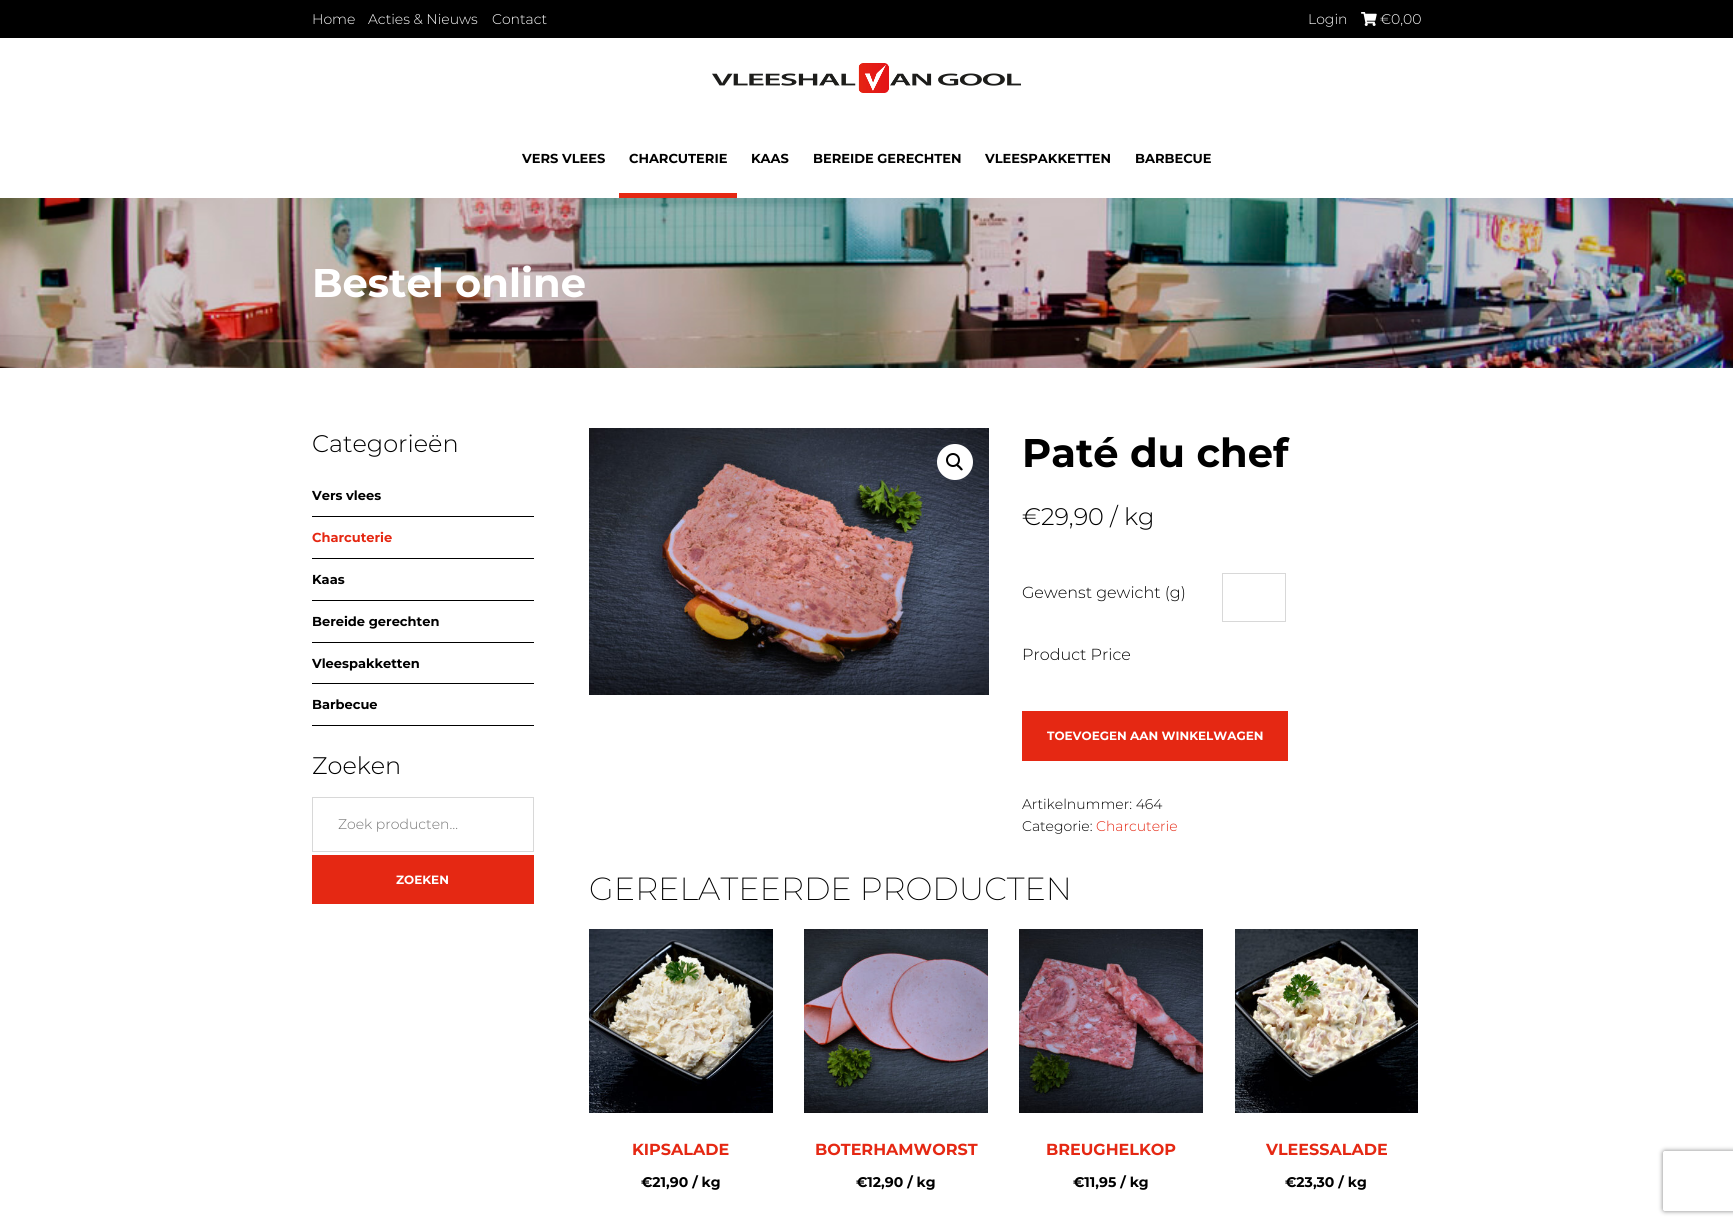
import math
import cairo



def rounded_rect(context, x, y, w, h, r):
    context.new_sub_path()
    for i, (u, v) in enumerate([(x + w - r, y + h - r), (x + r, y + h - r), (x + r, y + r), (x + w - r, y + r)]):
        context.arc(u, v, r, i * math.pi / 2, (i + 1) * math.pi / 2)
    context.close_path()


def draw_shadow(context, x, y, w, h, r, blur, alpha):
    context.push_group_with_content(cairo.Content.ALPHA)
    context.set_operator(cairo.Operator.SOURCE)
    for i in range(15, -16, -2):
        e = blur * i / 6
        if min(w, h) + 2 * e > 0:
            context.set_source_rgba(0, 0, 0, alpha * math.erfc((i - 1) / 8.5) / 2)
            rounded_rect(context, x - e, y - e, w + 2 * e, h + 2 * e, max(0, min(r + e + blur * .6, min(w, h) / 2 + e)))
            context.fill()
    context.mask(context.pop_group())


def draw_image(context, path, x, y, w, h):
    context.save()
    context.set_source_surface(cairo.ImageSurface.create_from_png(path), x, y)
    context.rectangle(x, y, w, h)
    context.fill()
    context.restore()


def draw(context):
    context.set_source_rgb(1, 1, 1)
    context.paint()
    context.set_source_rgb(0, 0, 0)
    context.rectangle(0, 0, 1733, 38)
    context.fill()
    draw_image(context, "images/1.png", 1361, 12, 16, 14)
    draw_image(context, "images/2.png", 712, 63, 309, 30)
    context.set_source_rgb(229 / 255, 40 / 255, 19 / 255)
    context.rectangle(619, 193, 118, 5)
    context.fill()
    draw_image(context, "images/3.png", 0, 198, 1733, 170)
    context.set_source_rgb(0, 0, 0)
    context.rectangle(312, 516, 222, 1)
    context.fill()
    context.rectangle(312, 558, 222, 1)
    context.fill()
    context.rectangle(312, 600, 222, 1)
    context.fill()
    context.rectangle(312, 642, 222, 1)
    context.fill()
    context.rectangle(312, 683, 222, 1)
    context.fill()
    context.rectangle(312, 725, 222, 1)
    context.fill()
    context.rectangle(312.5, 797.5, 221, 54)
    context.set_source_rgb(216 / 255, 216 / 255, 216 / 255)
    context.set_line_width(1)
    context.stroke()
    context.set_source_rgb(229 / 255, 40 / 255, 19 / 255)
    context.rectangle(312, 855, 222, 49)
    context.fill()
    draw_image(context, "images/4.png", 589, 428, 400, 267)
    context.set_source_rgb(1, 1, 1)
    context.arc(955, 462, 18, 0, 2 * math.pi)
    context.fill()
    context.arc(953, 460, 6, 0, 2 * math.pi)
    context.set_source_rgb(0, 0, 0)
    context.set_line_width(2)
    context.stroke()
    context.new_path()
    context.move_to(957, 464.5)
    context.curve_to(958, 463.5, 959.5, 466, 960.5, 466.5)
    context.curve_to(961, 467.5, 963.5, 469, 962.5, 470)
    context.curve_to(961, 471.5, 959.5, 468.5, 959, 468)
    context.curve_to(958.5, 467.5, 955.5, 466, 957, 464.5)
    context.close_path()
    context.fill()
    context.rectangle(1222.5, 573.5, 63, 48)
    context.set_source_rgb(216 / 255, 216 / 255, 216 / 255)
    context.set_line_width(1)
    context.stroke()
    context.set_source_rgb(229 / 255, 40 / 255, 19 / 255)
    context.rectangle(1022, 711, 266, 50)
    context.fill()
    draw_image(context, "images/5.png", 589, 929, 184, 184)
    draw_image(context, "images/6.png", 804, 929, 184, 184)
    draw_image(context, "images/7.png", 1019, 929, 184, 184)
    draw_image(context, "images/8.png", 1235, 929, 183, 184)
    context.save()
    context.set_fill_rule(cairo.FillRule.EVEN_ODD)
    context.new_path()
    context.move_to(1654, 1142)
    context.line_to(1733, 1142)
    context.line_to(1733, 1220)
    context.line_to(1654, 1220)
    context.close_path()
    context.move_to(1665, 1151)
    context.line_to(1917, 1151)
    context.curve_to(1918, 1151, 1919, 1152, 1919, 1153)
    context.line_to(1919, 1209)
    context.curve_to(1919, 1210, 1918, 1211, 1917, 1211)
    context.line_to(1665, 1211)
    context.curve_to(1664, 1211, 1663, 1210, 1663, 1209)
    context.line_to(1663, 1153)
    context.curve_to(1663, 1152, 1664, 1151, 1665, 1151)
    context.close_path()
    context.clip()
    context.set_source_rgb(128 / 255, 128 / 255, 128 / 255)
    draw_shadow(context, 1663, 1151, 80, 60, 2, 2.5, 1)
    context.restore()
    context.select_font_face("Montserrat Light")
    context.set_font_size(14)
    context.set_source_rgb(1, 1, 1)
    context.move_to(312, 24)
    context.show_text("Home")
    context.move_to(368, 24)
    context.show_text("Acties & Nieuws")
    context.move_to(492, 24)
    context.show_text("Contact")
    context.move_to(1308, 24)
    context.show_text("Login")
    context.move_to(1380, 24)
    context.show_text("€0,00")
    context.select_font_face("Montserrat", cairo.FontSlant.NORMAL, cairo.FontWeight.BOLD)
    context.set_font_size(13)
    context.set_source_rgb(0, 0, 0)
    context.move_to(522, 163)
    context.show_text("VERS VLEES")
    context.move_to(629, 163)
    context.show_text("CHARCUTERIE")
    context.move_to(751, 163)
    context.show_text("KAAS")
    context.move_to(813, 163)
    context.show_text("BEREIDE GERECHTEN")
    context.move_to(985, 163)
    context.show_text("VLEESPAKKETTEN")
    context.move_to(1135, 163)
    context.show_text("BARBECUE")
    context.set_font_size(40)
    context.set_source_rgb(1, 1, 1)
    context.move_to(312, 297)
    context.show_text("Bestel online")
    context.select_font_face("Montserrat Light")
    context.set_font_size(24)
    context.set_source_rgb(0, 0, 0)
    context.move_to(312, 452)
    context.show_text("Categorieën")
    context.select_font_face("Montserrat", cairo.FontSlant.NORMAL, cairo.FontWeight.BOLD)
    context.set_font_size(13)
    context.move_to(312, 500)
    context.show_text("Vers vlees")
    context.set_source_rgb(229 / 255, 40 / 255, 19 / 255)
    context.move_to(312, 542)
    context.show_text("Charcuterie")
    context.set_source_rgb(0, 0, 0)
    context.move_to(312, 584)
    context.show_text("Kaas")
    context.move_to(312, 626)
    context.show_text("Bereide gerechten")
    context.move_to(312, 668)
    context.show_text("Vleespakketten")
    context.move_to(312, 709)
    context.show_text("Barbecue")
    context.select_font_face("Montserrat Light")
    context.set_font_size(24)
    context.move_to(312, 774)
    context.show_text("Zoeken")
    context.set_font_size(14)
    context.set_source_rgb(117 / 255, 117 / 255, 117 / 255)
    context.move_to(338, 829)
    context.show_text("Zoek producten…")
    context.select_font_face("Montserrat", cairo.FontSlant.NORMAL, cairo.FontWeight.BOLD)
    context.set_font_size(12)
    context.set_source_rgb(1, 1, 1)
    context.move_to(396, 884)
    context.show_text("ZOEKEN")
    context.set_font_size(40)
    context.set_source_rgb(0, 0, 0)
    context.move_to(1022, 467)
    context.show_text("Paté du chef")
    context.select_font_face("Montserrat Light")
    context.set_font_size(24)
    context.move_to(1022, 525)
    context.show_text("€29,90 / kg")
    context.set_font_size(16)
    context.move_to(1022, 598)
    context.show_text("Gewenst gewicht (g)")
    context.move_to(1022, 660)
    context.show_text("Product Price")
    context.select_font_face("Montserrat", cairo.FontSlant.NORMAL, cairo.FontWeight.BOLD)
    context.set_font_size(12)
    context.set_source_rgb(1, 1, 1)
    context.move_to(1047, 740)
    context.show_text("TOEVOEGEN AAN WINKELWAGEN")
    context.select_font_face("Montserrat Light")
    context.set_font_size(14)
    context.set_source_rgb(0, 0, 0)
    context.move_to(1022, 809)
    context.show_text("Artikelnummer: 464")
    context.move_to(1022, 831)
    context.show_text("Categorie:")
    context.set_source_rgb(229 / 255, 40 / 255, 19 / 255)
    context.move_to(1096, 831)
    context.show_text("Charcuterie")
    context.select_font_face("Montserrat ExtraLight")
    context.set_font_size(32)
    context.set_source_rgb(0, 0, 0)
    context.move_to(589, 900)
    context.show_text("GERELATEERDE PRODUCTEN")
    context.select_font_face("Montserrat", cairo.FontSlant.NORMAL, cairo.FontWeight.BOLD)
    context.set_font_size(16)
    context.set_source_rgb(229 / 255, 40 / 255, 19 / 255)
    context.move_to(632, 1155)
    context.show_text("KIPSALADE")
    context.set_font_size(14)
    context.set_source_rgb(0, 0, 0)
    context.move_to(641, 1187)
    context.show_text("€21,90 / kg")
    context.set_font_size(16)
    context.set_source_rgb(229 / 255, 40 / 255, 19 / 255)
    context.move_to(815, 1155)
    context.show_text("BOTERHAMWORST")
    context.set_font_size(14)
    context.set_source_rgb(0, 0, 0)
    context.move_to(856, 1187)
    context.show_text("€12,90 / kg")
    context.set_font_size(16)
    context.set_source_rgb(229 / 255, 40 / 255, 19 / 255)
    context.move_to(1046, 1155)
    context.show_text("BREUGHELKOP")
    context.set_font_size(14)
    context.set_source_rgb(0, 0, 0)
    context.move_to(1073, 1187)
    context.show_text("€11,95 / kg")
    context.set_font_size(16)
    context.set_source_rgb(229 / 255, 40 / 255, 19 / 255)
    context.move_to(1266, 1155)
    context.show_text("VLEESSALADE")
    context.set_font_size(14)
    context.set_source_rgb(0, 0, 0)
    context.move_to(1285, 1187)
    context.show_text("€23,30 / kg")


surface = cairo.ImageSurface(cairo.Format.RGB24, 1733, 1225)
context = cairo.Context(surface)
options = cairo.FontOptions()
options.set_hint_metrics(cairo.HintMetrics.OFF)
options.set_hint_style(cairo.HintStyle.NONE)
context.set_font_options(options)
context.set_miter_limit(4)
draw(context)
surface.write_to_png("out.png")
